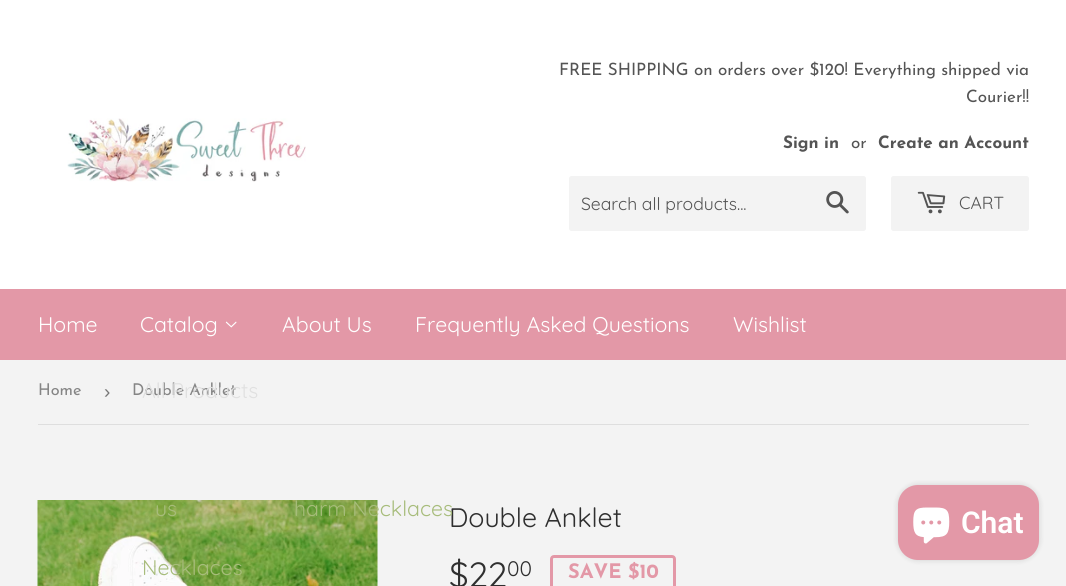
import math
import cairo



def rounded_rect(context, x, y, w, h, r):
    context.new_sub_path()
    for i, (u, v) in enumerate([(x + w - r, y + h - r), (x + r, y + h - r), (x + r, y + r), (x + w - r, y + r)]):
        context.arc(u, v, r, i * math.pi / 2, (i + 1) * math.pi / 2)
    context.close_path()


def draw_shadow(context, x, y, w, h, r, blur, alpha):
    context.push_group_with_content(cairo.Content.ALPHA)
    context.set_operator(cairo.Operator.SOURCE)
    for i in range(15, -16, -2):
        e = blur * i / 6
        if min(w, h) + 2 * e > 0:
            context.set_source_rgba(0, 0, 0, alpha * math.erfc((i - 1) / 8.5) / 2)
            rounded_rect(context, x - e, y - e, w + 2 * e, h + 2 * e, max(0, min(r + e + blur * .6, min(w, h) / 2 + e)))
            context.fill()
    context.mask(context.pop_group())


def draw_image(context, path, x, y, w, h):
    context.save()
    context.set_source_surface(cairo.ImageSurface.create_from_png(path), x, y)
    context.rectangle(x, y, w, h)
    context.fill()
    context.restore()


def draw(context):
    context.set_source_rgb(243 / 255, 243 / 255, 243 / 255)
    context.paint()
    context.set_source_rgb(1, 1, 1)
    context.rectangle(0, 0, 1066, 289)
    context.fill()
    draw_image(context, "images/1.png", 67, 118, 239, 64)
    context.set_source_rgb(243 / 255, 243 / 255, 243 / 255)
    rounded_rect(context, 569, 176, 297, 55, 2.5)
    context.fill()
    draw_image(context, "images/2.png", 826, 191, 23, 23)
    rounded_rect(context, 891, 176, 138, 55, 2.5)
    context.fill()
    draw_image(context, "images/3.png", 917, 191, 29, 23)
    context.set_source_rgb(227 / 255, 152 / 255, 167 / 255)
    context.rectangle(0, 289, 1066, 71)
    context.fill()
    draw_image(context, "images/4.png", 225, 321, 12, 7)
    context.set_source_rgb(222 / 255, 222 / 255, 222 / 255)
    context.rectangle(38, 424, 991, 1)
    context.fill()
    draw_image(context, "images/5.png", 37, 500, 341, 86)
    rounded_rect(context, 551.5, 556.5, 123, 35, 2.5)
    context.set_source_rgb(227 / 255, 152 / 255, 167 / 255)
    context.set_line_width(3)
    context.stroke()
    context.set_source_rgb(0, 0, 0)
    draw_shadow(context, 898, 485, 141, 75, 20, 3, 0.15)
    context.set_source_rgb(227 / 255, 152 / 255, 167 / 255)
    rounded_rect(context, 898, 485, 141, 75, 20)
    context.fill()
    draw_image(context, "images/6.png", 913, 507, 37, 37)
    context.select_font_face("Josefin Sans")
    context.set_font_size(17)
    context.set_source_rgb(84 / 255, 84 / 255, 84 / 255)
    context.move_to(559, 75)
    context.show_text("FREE SHIPPING on orders over $120! Everything shipped via")
    context.move_to(966, 102)
    context.show_text("Courier!!")
    context.select_font_face("Josefin Sans", cairo.FontSlant.NORMAL, cairo.FontWeight.BOLD)
    context.move_to(783, 148)
    context.show_text("Sign in")
    context.select_font_face("Josefin Sans")
    context.move_to(851, 148)
    context.show_text("or")
    context.select_font_face("Josefin Sans", cairo.FontSlant.NORMAL, cairo.FontWeight.BOLD)
    context.move_to(878, 148)
    context.show_text("Create an Account")
    context.select_font_face("Quicksand")
    context.set_font_size(17.5)
    context.move_to(581, 210)
    context.show_text("Search all products...")
    context.move_to(959, 209)
    context.show_text("CART")
    context.set_font_size(21.25)
    context.set_source_rgb(1, 1, 1)
    context.move_to(140, 332)
    context.show_text("Catalog")
    context.set_source_rgb(167 / 255, 188 / 255, 123 / 255)
    context.move_to(155, 516)
    context.show_text("us")
    context.move_to(142, 575)
    context.show_text("Necklaces")
    context.set_source_rgb(1, 1, 1)
    context.move_to(38, 332)
    context.show_text("Home")
    context.move_to(282, 332)
    context.show_text("About Us")
    context.move_to(415, 332)
    context.show_text("Frequently Asked Questions")
    context.move_to(733, 332)
    context.show_text("Wishlist")
    context.select_font_face("Josefin Sans")
    context.set_font_size(16.25)
    context.set_source_rgb(133 / 255, 133 / 255, 133 / 255)
    context.move_to(38, 395)
    context.show_text("Home")
    context.select_font_face("Liberation Sans")
    context.set_font_size(19)
    context.set_source_rgb(118 / 255, 118 / 255, 118 / 255)
    context.move_to(104, 398)
    context.show_text("›")
    context.select_font_face("Josefin Sans")
    context.set_font_size(16.25)
    context.set_source_rgb(133 / 255, 133 / 255, 133 / 255)
    context.move_to(132, 395)
    context.show_text("Double Anklet")
    context.select_font_face("Quicksand")
    context.set_font_size(21.25)
    context.set_source_rgb(224 / 255, 224 / 255, 224 / 255)
    context.move_to(142, 398)
    context.show_text("All Products")
    context.set_font_size(26.75)
    context.set_source_rgb(47 / 255, 47 / 255, 47 / 255)
    context.move_to(449, 527)
    context.show_text("Double Anklet")
    context.set_font_size(21.25)
    context.set_source_rgb(167 / 255, 188 / 255, 123 / 255)
    context.move_to(294, 516)
    context.show_text("harm Necklaces")
    context.set_font_size(35)
    context.set_source_rgb(47 / 255, 47 / 255, 47 / 255)
    context.move_to(449, 587)
    context.show_text("$22")
    context.set_font_size(21)
    context.move_to(507, 576)
    context.show_text("00")
    context.select_font_face("Josefin Sans", cairo.FontSlant.NORMAL, cairo.FontWeight.BOLD)
    context.set_font_size(20)
    context.set_source_rgb(227 / 255, 152 / 255, 167 / 255)
    context.move_to(568, 578)
    context.show_text("SAVE $10")
    context.select_font_face("Roboto SemiBold")
    context.set_font_size(30)
    context.set_source_rgb(1, 1, 1)
    context.move_to(961, 533)
    context.show_text("Chat")


surface = cairo.ImageSurface(cairo.Format.RGB24, 1066, 586)
context = cairo.Context(surface)
options = cairo.FontOptions()
options.set_hint_metrics(cairo.HintMetrics.OFF)
options.set_hint_style(cairo.HintStyle.NONE)
context.set_font_options(options)
context.set_miter_limit(4)
draw(context)
surface.write_to_png("out.png")
